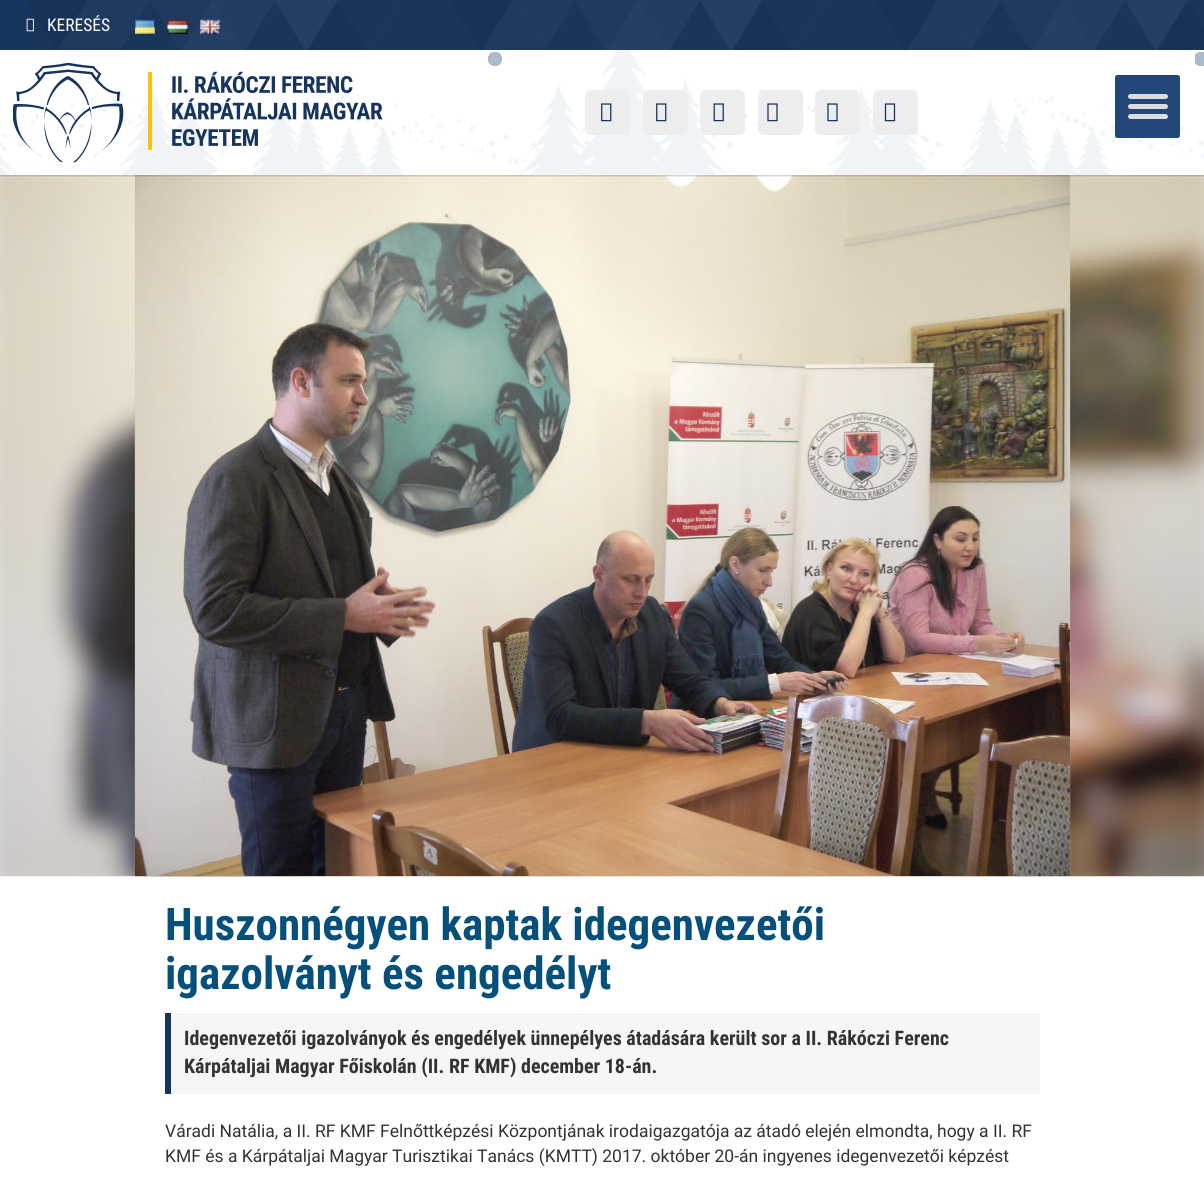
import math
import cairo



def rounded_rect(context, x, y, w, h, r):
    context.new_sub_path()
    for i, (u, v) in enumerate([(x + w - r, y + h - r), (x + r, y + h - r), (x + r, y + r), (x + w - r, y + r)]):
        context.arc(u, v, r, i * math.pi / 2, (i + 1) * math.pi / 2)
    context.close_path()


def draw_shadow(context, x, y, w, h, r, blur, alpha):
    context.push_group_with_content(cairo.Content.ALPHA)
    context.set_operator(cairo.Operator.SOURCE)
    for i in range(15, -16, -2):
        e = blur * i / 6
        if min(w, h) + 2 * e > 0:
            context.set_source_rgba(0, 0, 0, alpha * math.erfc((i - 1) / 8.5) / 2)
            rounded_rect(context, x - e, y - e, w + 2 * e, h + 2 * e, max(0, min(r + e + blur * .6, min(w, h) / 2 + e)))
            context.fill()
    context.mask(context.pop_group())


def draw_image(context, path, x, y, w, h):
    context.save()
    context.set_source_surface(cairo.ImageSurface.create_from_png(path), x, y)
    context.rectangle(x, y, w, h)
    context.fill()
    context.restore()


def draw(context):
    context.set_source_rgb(1, 1, 1)
    context.paint()
    draw_image(context, "images/12.png", 0, 175, 1204, 702)
    context.set_source_rgba(245 / 255, 245 / 255, 244 / 255, 0.08)
    context.rectangle(134, 175, 937, 701)
    context.fill()
    context.set_source_rgba(143 / 255, 143 / 255, 143 / 255, 0.07)
    context.rectangle(1070, 175, 1, 701)
    context.fill()
    context.rectangle(134, 175, 1, 660)
    context.fill()
    draw_image(context, "images/13.png", 135, 175, 935, 702)
    context.save()
    context.rectangle(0, 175, 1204, 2)
    context.clip()
    context.set_source_rgb(0, 0, 0)
    draw_shadow(context, 0, 1, 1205, 175, 0, 1, 0.23)
    context.restore()
    draw_image(context, "images/1.png", 0, 50, 1204, 125)
    context.set_source_rgb(22 / 255, 53 / 255, 94 / 255)
    context.rectangle(0, 0, 25, 50)
    context.fill()
    draw_image(context, "images/2.png", 25, 0, 1179, 50)
    draw_image(context, "images/3.png", 26, 18, 8, 14)
    draw_image(context, "images/4.png", 135, 19, 20, 15)
    draw_image(context, "images/5.png", 167, 19, 21, 15)
    draw_image(context, "images/6.png", 200, 19, 20, 15)
    draw_image(context, "images/7.png", 13, 63, 370, 100)
    context.set_source_rgb(237 / 255, 237 / 255, 237 / 255)
    rounded_rect(context, 585, 90, 45, 45, 6)
    context.fill()
    draw_image(context, "images/8.png", 601, 103, 11, 19)
    rounded_rect(context, 643, 90, 45, 45, 6)
    context.fill()
    draw_image(context, "images/8.png", 656, 103, 11, 19)
    rounded_rect(context, 700, 90, 45, 45, 6)
    context.fill()
    draw_image(context, "images/9.png", 713, 103, 11, 19)
    rounded_rect(context, 758, 90, 45, 45, 6)
    context.fill()
    draw_image(context, "images/10.png", 767, 103, 11, 19)
    rounded_rect(context, 815, 90, 45, 45, 6)
    context.fill()
    draw_image(context, "images/10.png", 827, 103, 11, 19)
    rounded_rect(context, 873, 90, 45, 45, 6)
    context.fill()
    draw_image(context, "images/11.png", 884, 103, 12, 19)
    context.set_source_rgb(34 / 255, 71 / 255, 120 / 255)
    rounded_rect(context, 1115, 75, 65, 63, 2.5)
    context.fill()
    context.set_source_rgb(221 / 255, 221 / 255, 221 / 255)
    rounded_rect(context, 1128, 94, 40, 5, 2.5)
    context.fill()
    rounded_rect(context, 1128, 104, 40, 5, 2.5)
    context.fill()
    rounded_rect(context, 1128, 114, 40, 5, 2.5)
    context.fill()
    gradient = cairo.RadialGradient(495, 59, 0, 495, 59, 725)
    gradient.add_color_stop_rgba(0.01, 170 / 255, 187 / 255, 204 / 255, 1)
    gradient.add_color_stop_rgba(0.01, 170 / 255, 187 / 255, 204 / 255, 0)
    context.set_source(gradient)
    context.rectangle(488, 52, 14, 14)
    context.fill()
    gradient = cairo.RadialGradient(1201, 59, 0, 1201, 59, 725)
    gradient.add_color_stop_rgba(0.01, 170 / 255, 187 / 255, 204 / 255, 1)
    gradient.add_color_stop_rgba(0.01, 170 / 255, 187 / 255, 204 / 255, 0)
    context.set_source(gradient)
    context.rectangle(1195, 52, 9, 14)
    context.fill()
    context.set_source_rgb(246 / 255, 246 / 255, 246 / 255)
    context.rectangle(171, 1013, 869, 81)
    context.fill()
    context.set_source_rgb(22 / 255, 53 / 255, 94 / 255)
    context.rectangle(165, 1013, 6, 81)
    context.fill()
    context.select_font_face("Roboto Condensed")
    context.set_font_size(17.5)
    context.set_source_rgb(1, 1, 1)
    context.move_to(47, 31)
    context.show_text("KERESÉS")
    context.select_font_face("Roboto Condensed", cairo.FontSlant.NORMAL, cairo.FontWeight.BOLD)
    context.set_font_size(45)
    context.set_source_rgb(5 / 255, 80 / 255, 123 / 255)
    context.move_to(165, 940)
    context.show_text("Huszonnégyen kaptak idegenvezetői")
    context.move_to(165, 989)
    context.show_text("igazolványt és engedélyt")
    context.set_font_size(20)
    context.set_source_rgb(51 / 255, 51 / 255, 51 / 255)
    context.move_to(184, 1045)
    context.show_text("Idegenvezetői igazolványok és engedélyek ünnepélyes átadására került sor a II. Rákóczi Ferenc")
    context.move_to(184, 1073)
    context.show_text("Kárpátaljai Magyar Főiskolán (II. RF KMF) december 18-án.")
    context.select_font_face("Roboto")
    context.set_font_size(17.5)
    context.move_to(165, 1137)
    context.show_text("Váradi Natália, a II. RF KMF Felnőttképzési Központjának irodaigazgatója az átadó elején elmondta, hogy a II. RF")
    context.move_to(165, 1162)
    context.show_text("KMF és a Kárpátaljai Magyar Turisztikai Tanács (KMTT) 2017. október 20-án ingyenes idegenvezetői képzést")


surface = cairo.ImageSurface(cairo.Format.RGB24, 1204, 1177)
context = cairo.Context(surface)
options = cairo.FontOptions()
options.set_hint_metrics(cairo.HintMetrics.OFF)
options.set_hint_style(cairo.HintStyle.NONE)
context.set_font_options(options)
context.set_miter_limit(4)
draw(context)
surface.write_to_png("out.png")
